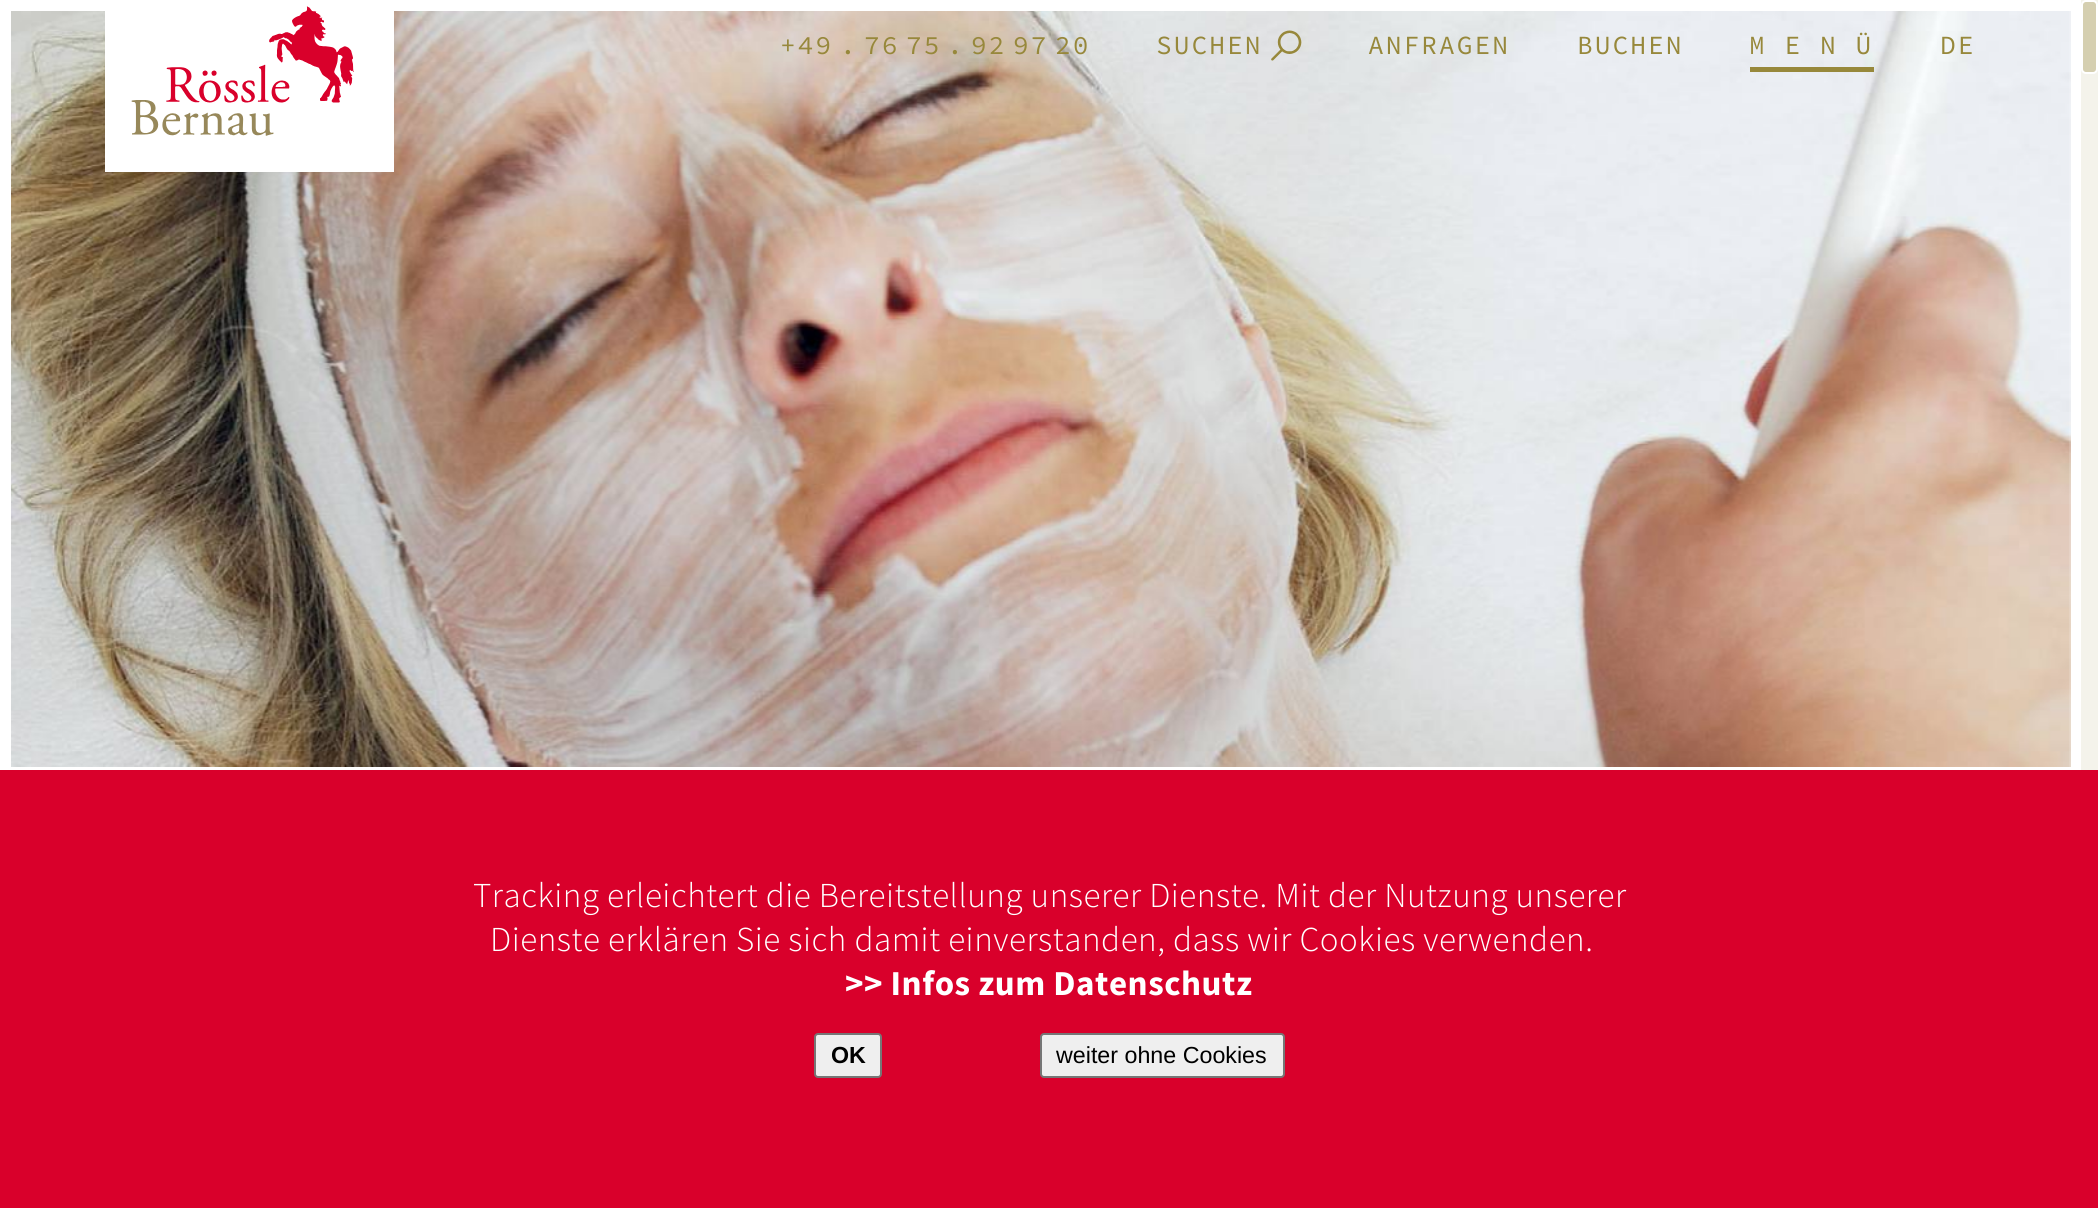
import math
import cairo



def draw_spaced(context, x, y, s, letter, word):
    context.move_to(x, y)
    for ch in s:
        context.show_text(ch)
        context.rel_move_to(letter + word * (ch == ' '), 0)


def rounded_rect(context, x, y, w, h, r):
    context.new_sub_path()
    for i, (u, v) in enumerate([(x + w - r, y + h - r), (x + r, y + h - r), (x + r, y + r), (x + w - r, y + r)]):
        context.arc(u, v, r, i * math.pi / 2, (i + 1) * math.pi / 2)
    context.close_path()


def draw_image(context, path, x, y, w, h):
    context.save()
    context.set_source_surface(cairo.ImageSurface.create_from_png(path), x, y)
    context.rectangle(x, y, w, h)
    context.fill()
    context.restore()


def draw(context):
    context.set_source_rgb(1, 1, 1)
    context.paint()
    draw_image(context, "images/1.png", 11, 11, 2060, 756)
    context.set_source_rgb(1, 1, 1)
    context.rectangle(105, 11, 289, 161)
    context.fill()
    draw_image(context, "images/3.png", 131, 64, 159, 72)
    draw_image(context, "images/2.png", 269, 6, 85, 97)
    draw_image(context, "images/4.png", 1271, 30, 31, 31)
    context.set_source_rgb(151 / 255, 136 / 255, 59 / 255)
    context.rectangle(1750, 67, 124, 5)
    context.fill()
    context.set_source_rgb(244 / 255, 243 / 255, 235 / 255)
    context.rectangle(2081, 0, 17, 770)
    context.fill()
    context.set_source_rgb(213 / 255, 207 / 255, 176 / 255)
    rounded_rect(context, 2082, 1, 15, 72, 4)
    context.fill_preserve()
    context.set_source_rgb(1, 1, 1)
    context.stroke()
    context.set_source_rgb(217 / 255, 0, 43 / 255)
    context.rectangle(0, 770, 2098, 438)
    context.fill()
    context.set_source_rgb(239 / 255, 239 / 255, 239 / 255)
    rounded_rect(context, 815, 1034, 66, 43, 3)
    context.fill_preserve()
    context.set_source_rgb(118 / 255, 118 / 255, 118 / 255)
    context.stroke()
    context.set_source_rgb(239 / 255, 239 / 255, 239 / 255)
    rounded_rect(context, 1041, 1034, 243, 43, 3)
    context.fill_preserve()
    context.set_source_rgb(118 / 255, 118 / 255, 118 / 255)
    context.stroke()
    context.select_font_face("Source Code Pro")
    context.set_font_size(26.25)
    context.set_source_rgb(151 / 255, 136 / 255, 59 / 255)
    draw_spaced(context, 780, 54, "+49", 2, 0)
    draw_spaced(context, 840, 54, ".", 2, 0)
    draw_spaced(context, 864, 54, "76", 2, 0)
    draw_spaced(context, 906, 54, "75", 2, 0)
    draw_spaced(context, 947, 54, ".", 2, 0)
    draw_spaced(context, 971, 54, "92", 2, 0)
    draw_spaced(context, 1013, 54, "97", 2, 0)
    draw_spaced(context, 1055, 54, "20", 2, 0)
    draw_spaced(context, 1156, 54, "SUCHEN", 2, 0)
    draw_spaced(context, 1368, 54, "ANFRAGEN", 2, 0)
    draw_spaced(context, 1577, 54, "BUCHEN", 2, 0)
    draw_spaced(context, 1749, 54, "M E N Ü", 2, 0)
    draw_spaced(context, 1940, 54, "DE", 2, 0)
    context.select_font_face("Source Sans Pro Light")
    context.set_font_size(35)
    context.set_source_rgb(1, 1, 1)
    draw_spaced(context, 473, 907, "Tracking erleichtert die Bereitstellung unserer Dienste. Mit der Nutzung unserer", 0.53, 0)
    draw_spaced(context, 490, 951, "Dienste erklären Sie sich damit einverstanden, dass wir Cookies verwenden.", 0.53, 0)
    context.select_font_face("Source Sans Pro", cairo.FontSlant.NORMAL, cairo.FontWeight.BOLD)
    draw_spaced(context, 845, 995, ">> Infos zum Datenschutz", 0.53, 0)
    context.select_font_face("Liberation Sans", cairo.FontSlant.NORMAL, cairo.FontWeight.BOLD)
    context.set_font_size(23.25)
    context.set_source_rgb(0, 0, 0)
    context.move_to(831, 1063)
    context.show_text("OK")
    context.select_font_face("Liberation Sans")
    context.move_to(1056, 1063)
    context.show_text("weiter ohne Cookies")


surface = cairo.ImageSurface(cairo.Format.RGB24, 2098, 1208)
context = cairo.Context(surface)
options = cairo.FontOptions()
options.set_hint_metrics(cairo.HintMetrics.OFF)
options.set_hint_style(cairo.HintStyle.NONE)
context.set_font_options(options)
context.set_miter_limit(4)
draw(context)
surface.write_to_png("out.png")
